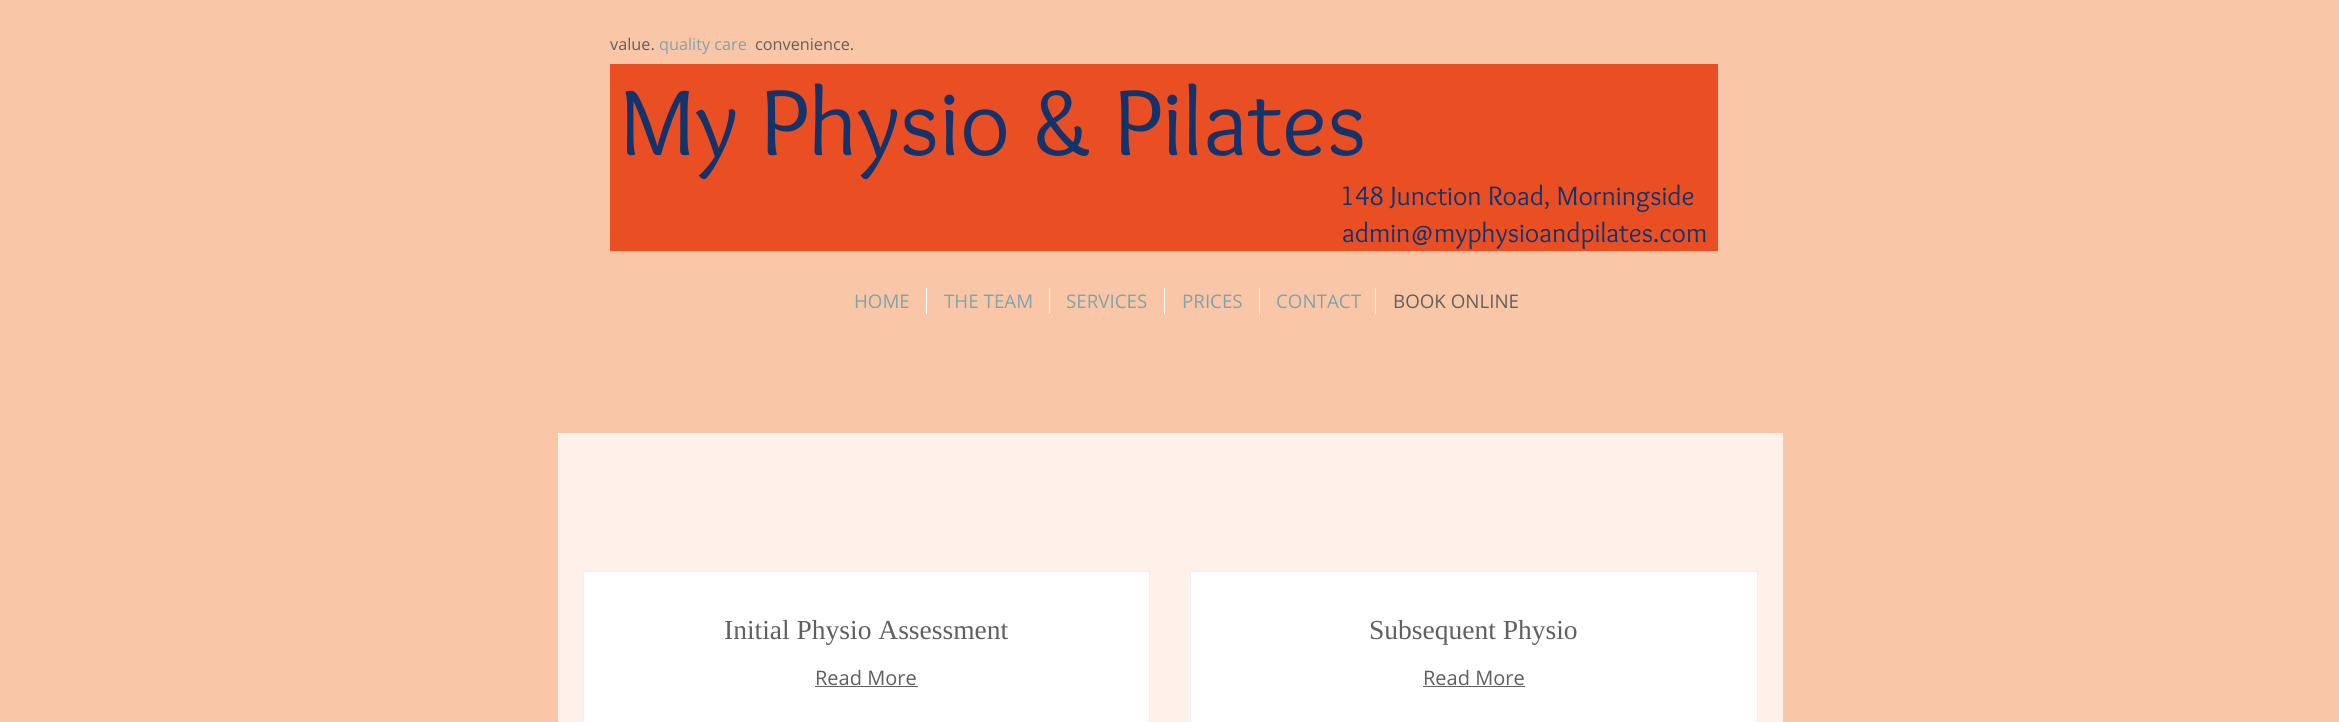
import math
import cairo



def draw(context):
    context.set_source_rgb(249 / 255, 199 / 255, 167 / 255)
    context.paint()
    context.set_source_rgb(234 / 255, 78 / 255, 35 / 255)
    context.rectangle(610, 64, 1108, 187)
    context.fill()
    context.set_source_rgb(1, 1, 1)
    context.rectangle(926, 288, 1, 26)
    context.fill()
    context.rectangle(1049, 288, 1, 26)
    context.fill()
    context.rectangle(1164, 288, 1, 26)
    context.fill()
    context.rectangle(1259, 288, 1, 26)
    context.fill()
    context.rectangle(1375, 288, 1, 26)
    context.fill()
    context.set_source_rgb(253 / 255, 241 / 255, 233 / 255)
    context.rectangle(558, 433, 1225, 289)
    context.fill()
    context.set_source_rgb(1, 1, 1)
    context.rectangle(583.5, 571.5, 566, 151)
    context.fill_preserve()
    context.set_source_rgb(239 / 255, 239 / 255, 239 / 255)
    context.set_line_width(1)
    context.stroke()
    context.set_source_rgb(96 / 255, 96 / 255, 96 / 255)
    context.rectangle(815, 686, 103, 1)
    context.fill()
    context.set_source_rgb(1, 1, 1)
    context.rectangle(1190.5, 571.5, 567, 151)
    context.fill_preserve()
    context.set_source_rgb(239 / 255, 239 / 255, 239 / 255)
    context.stroke()
    context.set_source_rgb(96 / 255, 96 / 255, 96 / 255)
    context.rectangle(1423, 686, 102, 1)
    context.fill()
    context.select_font_face("Open Sans")
    context.set_font_size(16.25)
    context.move_to(610, 50)
    context.show_text("value.")
    context.set_source_rgb(129 / 255, 162 / 255, 170 / 255)
    context.move_to(659, 50)
    context.show_text("quality care")
    context.set_source_rgb(172 / 255, 216 / 255, 226 / 255)
    context.move_to(747, 50)
    context.show_text(".")
    context.set_source_rgb(96 / 255, 96 / 255, 96 / 255)
    context.move_to(755, 50)
    context.show_text("convenience.")
    context.select_font_face("Overlock")
    context.set_font_size(96.25)
    context.set_source_rgb(20 / 255, 51 / 255, 107 / 255)
    context.move_to(619, 155)
    context.show_text("My Physio & Pilates")
    context.set_font_size(27.5)
    context.move_to(1340, 205)
    context.show_text("148 Junction Road, Morningside")
    context.move_to(1342, 242)
    context.show_text("admin@myphysioandpilates.com")
    context.select_font_face("Open Sans")
    context.set_font_size(18.75)
    context.set_source_rgb(129 / 255, 162 / 255, 170 / 255)
    context.move_to(854, 308)
    context.show_text("HOME")
    context.move_to(944, 308)
    context.show_text("THE TEAM")
    context.move_to(1066, 308)
    context.show_text("SERVICES")
    context.move_to(1182, 308)
    context.show_text("PRICES")
    context.move_to(1276, 308)
    context.show_text("CONTACT")
    context.set_source_rgb(96 / 255, 96 / 255, 96 / 255)
    context.move_to(1393, 308)
    context.show_text("BOOK ONLINE")
    context.select_font_face("Liberation Serif")
    context.set_font_size(27.5)
    context.move_to(724, 639)
    context.show_text("Initial Physio Assessment")
    context.select_font_face("Open Sans")
    context.set_font_size(20)
    context.move_to(815, 685)
    context.show_text("Read More")
    context.select_font_face("Liberation Serif")
    context.set_font_size(27.5)
    context.move_to(1369, 639)
    context.show_text("Subsequent Physio")
    context.select_font_face("Open Sans")
    context.set_font_size(20)
    context.move_to(1423, 685)
    context.show_text("Read More")


surface = cairo.ImageSurface(cairo.Format.RGB24, 2339, 722)
context = cairo.Context(surface)
options = cairo.FontOptions()
options.set_hint_metrics(cairo.HintMetrics.OFF)
options.set_hint_style(cairo.HintStyle.NONE)
context.set_font_options(options)
context.set_miter_limit(4)
draw(context)
surface.write_to_png("out.png")
